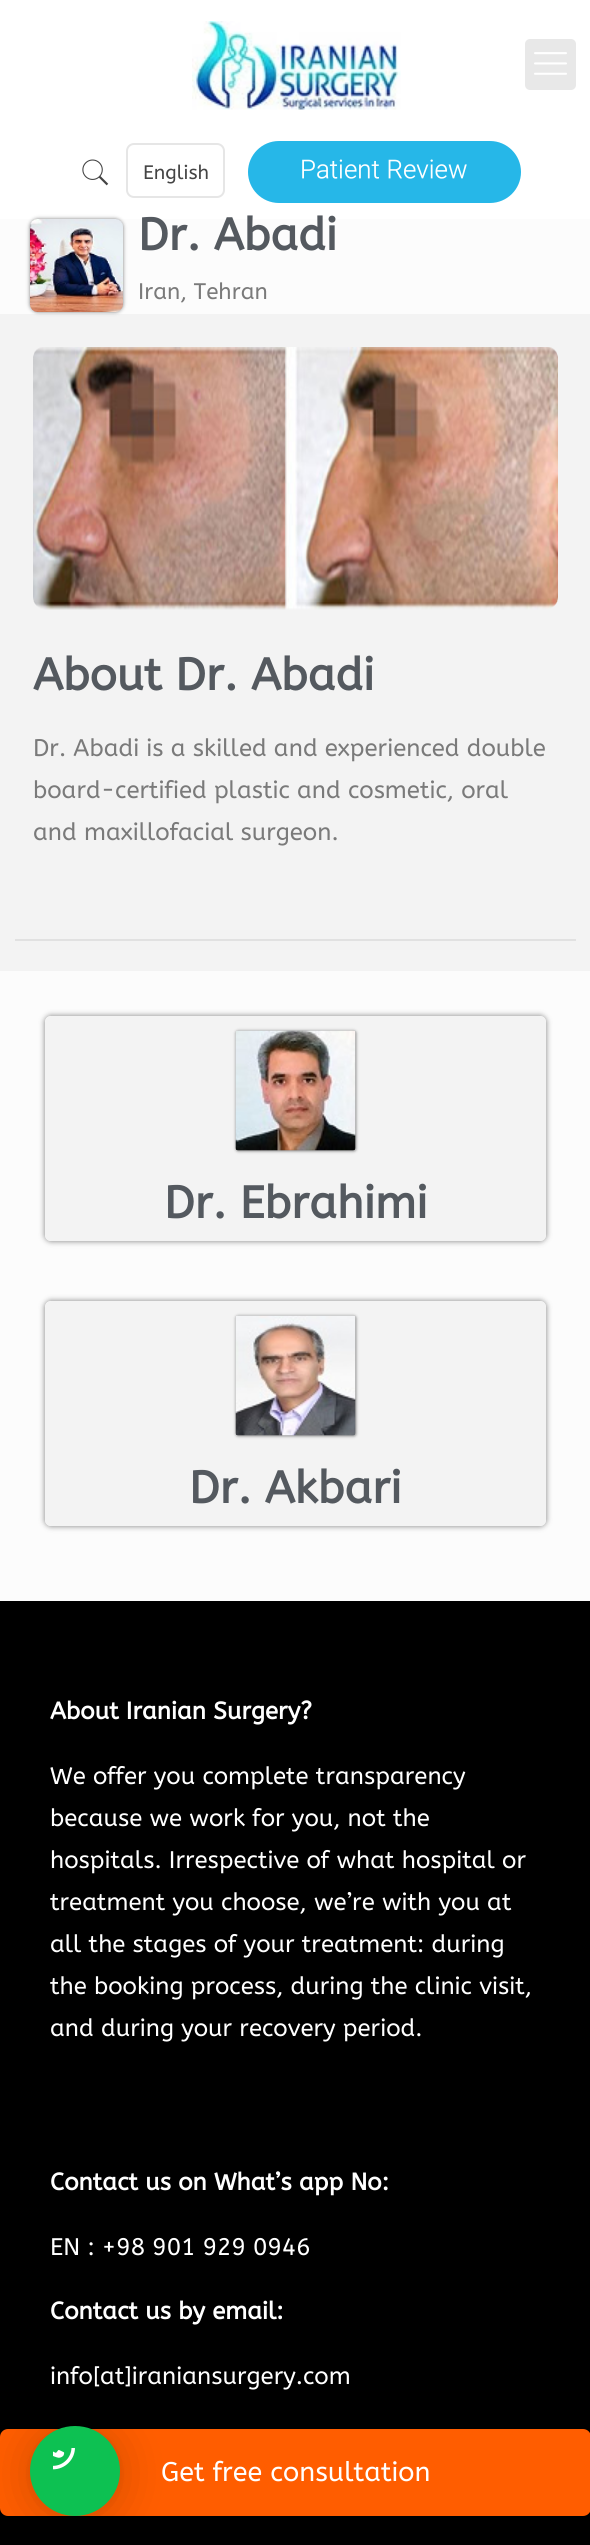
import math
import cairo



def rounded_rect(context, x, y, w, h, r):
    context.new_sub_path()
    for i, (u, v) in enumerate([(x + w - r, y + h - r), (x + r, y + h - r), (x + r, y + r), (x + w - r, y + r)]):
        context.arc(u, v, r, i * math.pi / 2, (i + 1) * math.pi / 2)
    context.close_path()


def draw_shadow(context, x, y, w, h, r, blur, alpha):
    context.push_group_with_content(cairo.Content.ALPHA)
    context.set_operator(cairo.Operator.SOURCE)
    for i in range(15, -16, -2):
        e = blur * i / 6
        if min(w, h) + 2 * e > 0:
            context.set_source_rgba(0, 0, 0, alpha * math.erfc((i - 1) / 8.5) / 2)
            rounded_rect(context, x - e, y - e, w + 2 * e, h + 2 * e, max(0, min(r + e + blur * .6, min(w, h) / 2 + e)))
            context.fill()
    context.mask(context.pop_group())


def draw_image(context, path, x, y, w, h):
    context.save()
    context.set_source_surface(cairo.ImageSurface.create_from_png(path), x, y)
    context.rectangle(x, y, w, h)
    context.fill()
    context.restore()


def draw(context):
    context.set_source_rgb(252 / 255, 252 / 255, 252 / 255)
    context.paint()
    context.set_source_rgb(1, 1, 1)
    context.rectangle(0, 0, 590, 219)
    context.fill()
    draw_image(context, "images/1.png", 192, 21, 209, 89)
    context.set_source_rgb(232 / 255, 232 / 255, 232 / 255)
    rounded_rect(context, 525, 39, 51, 51, 5)
    context.fill()
    draw_image(context, "images/2.png", 534, 52, 33, 23)
    draw_image(context, "images/3.png", 82, 159, 27, 27)
    rounded_rect(context, 127, 144, 97, 53, 7)
    context.set_source_rgb(230 / 255, 230 / 255, 230 / 255)
    context.stroke()
    context.set_source_rgb(38 / 255, 183 / 255, 232 / 255)
    rounded_rect(context, 248, 141, 273, 62, 31)
    context.fill()
    context.set_source_rgb(0, 0, 0)
    draw_shadow(context, 30, 219, 93, 93, 8, 2, 0.5)
    draw_image(context, "images/4.png", 30, 219, 93, 93)
    context.set_source_rgba(122 / 255, 122 / 255, 122 / 255, 0.07)
    context.rectangle(0, 314, 590, 657)
    context.fill()
    draw_image(context, "images/5.png", 33, 347, 525, 263)
    context.set_source_rgb(0, 0, 0)
    context.rectangle(0, 1601, 590, 944)
    context.fill()
    context.set_source_rgb(1, 93 / 255, 0)
    rounded_rect(context, 0, 2429, 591, 87, 8)
    context.fill()
    context.set_source_rgb(225 / 255, 225 / 255, 225 / 255)
    context.rectangle(15, 939, 561, 2)
    context.fill()
    context.save()
    context.set_fill_rule(cairo.FillRule.EVEN_ODD)
    context.new_path()
    context.move_to(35, 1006)
    context.line_to(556, 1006)
    context.line_to(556, 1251)
    context.line_to(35, 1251)
    context.close_path()
    context.move_to(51, 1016)
    context.line_to(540, 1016)
    context.curve_to(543.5, 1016, 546, 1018.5, 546, 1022)
    context.line_to(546, 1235)
    context.curve_to(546, 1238.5, 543.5, 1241, 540, 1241)
    context.line_to(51, 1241)
    context.curve_to(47.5, 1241, 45, 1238.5, 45, 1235)
    context.line_to(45, 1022)
    context.curve_to(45, 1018.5, 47.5, 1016, 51, 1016)
    context.close_path()
    context.clip()
    context.set_source_rgb(0, 0, 0)
    draw_shadow(context, 45, 1016, 501, 225, 6, 3, 0.5)
    context.restore()
    context.set_source_rgba(122 / 255, 122 / 255, 122 / 255, 0.07)
    rounded_rect(context, 45, 1016, 501, 225, 6)
    context.fill()
    context.set_source_rgb(0, 0, 0)
    draw_shadow(context, 236, 1031, 120, 120, 2, 1.5, 0.5)
    draw_image(context, "images/6.png", 235, 1030, 121, 121)
    context.save()
    context.set_fill_rule(cairo.FillRule.EVEN_ODD)
    context.new_path()
    context.move_to(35, 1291)
    context.line_to(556, 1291)
    context.line_to(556, 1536)
    context.line_to(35, 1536)
    context.close_path()
    context.move_to(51, 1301)
    context.line_to(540, 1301)
    context.curve_to(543.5, 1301, 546, 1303.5, 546, 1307)
    context.line_to(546, 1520)
    context.curve_to(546, 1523.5, 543.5, 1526, 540, 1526)
    context.line_to(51, 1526)
    context.curve_to(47.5, 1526, 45, 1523.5, 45, 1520)
    context.line_to(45, 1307)
    context.curve_to(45, 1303.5, 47.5, 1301, 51, 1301)
    context.close_path()
    context.clip()
    draw_shadow(context, 45, 1301, 501, 225, 6, 3, 0.5)
    context.restore()
    context.set_source_rgba(122 / 255, 122 / 255, 122 / 255, 0.07)
    rounded_rect(context, 45, 1301, 501, 225, 6)
    context.fill()
    context.set_source_rgb(0, 0, 0)
    draw_shadow(context, 236, 1316, 120, 120, 2, 1.5, 0.5)
    draw_image(context, "images/7.png", 235, 1315, 121, 121)
    draw_shadow(context, 30, 2429, 90, 90, 45, 24, 0.16)
    draw_shadow(context, 30, 2427, 90, 90, 45, 4.5, 0.06)
    context.set_source_rgb(13 / 255, 193 / 255, 82 / 255)
    context.arc(75, 2471, 45, 0, 2 * math.pi)
    context.fill()
    draw_image(context, "images/8.png", 53, 2448, 22, 22)
    context.select_font_face("ABeeZee")
    context.set_font_size(19.5)
    context.set_source_rgb(68 / 255, 68 / 255, 68 / 255)
    context.move_to(143, 179)
    context.show_text("English")
    context.select_font_face("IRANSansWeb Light")
    context.set_font_size(24)
    context.set_source_rgb(1, 1, 1)
    context.move_to(300, 177)
    context.show_text("Patient Review")
    context.select_font_face("ABeeZee", cairo.FontSlant.NORMAL, cairo.FontWeight.BOLD)
    context.set_font_size(45)
    context.set_source_rgb(84 / 255, 89 / 255, 95 / 255)
    context.move_to(138, 250)
    context.show_text("Dr. Abadi")
    context.select_font_face("ABeeZee")
    context.set_font_size(22.5)
    context.set_source_rgb(122 / 255, 122 / 255, 122 / 255)
    context.move_to(138, 299)
    context.show_text("Iran, Tehran")
    context.select_font_face("ABeeZee", cairo.FontSlant.NORMAL, cairo.FontWeight.BOLD)
    context.set_font_size(45)
    context.set_source_rgb(84 / 255, 89 / 255, 95 / 255)
    context.move_to(33, 690)
    context.show_text("About Dr. Abadi")
    context.select_font_face("ABeeZee")
    context.set_font_size(24)
    context.set_source_rgb(122 / 255, 122 / 255, 122 / 255)
    context.move_to(33, 756)
    context.show_text("Dr. Abadi is a skilled and experienced double")
    context.move_to(33, 798)
    context.show_text("board-certified plastic and cosmetic, oral")
    context.move_to(33, 840)
    context.show_text("and maxillofacial surgeon.")
    context.set_font_size(27)
    context.set_source_rgb(1, 1, 1)
    context.move_to(161, 2481)
    context.show_text("Get free consultation")
    context.select_font_face("ABeeZee", cairo.FontSlant.NORMAL, cairo.FontWeight.BOLD)
    context.set_font_size(45)
    context.set_source_rgb(84 / 255, 89 / 255, 95 / 255)
    context.move_to(164, 1218)
    context.show_text("Dr. Ebrahimi")
    context.move_to(189, 1503)
    context.show_text("Dr. Akbari")
    context.set_font_size(24)
    context.set_source_rgb(1, 1, 1)
    context.move_to(50, 1719)
    context.show_text("About Iranian Surgery?")
    context.select_font_face("ABeeZee")
    context.move_to(50, 1784)
    context.show_text("We offer you complete transparency")
    context.move_to(50, 1826)
    context.show_text("because we work for you, not the")
    context.move_to(50, 1868)
    context.show_text("hospitals. Irrespective of what hospital or")
    context.move_to(50, 1910)
    context.show_text("treatment you choose, we’re with you at")
    context.move_to(50, 1952)
    context.show_text("all the stages of your treatment: during")
    context.move_to(50, 1994)
    context.show_text("the booking process, during the clinic visit,")
    context.move_to(50, 2036)
    context.show_text("and during your recovery period.")
    context.select_font_face("ABeeZee", cairo.FontSlant.NORMAL, cairo.FontWeight.BOLD)
    context.move_to(50, 2190)
    context.show_text("Contact us on What’s app No:")
    context.select_font_face("ABeeZee")
    context.move_to(50, 2255)
    context.show_text("EN : +98 901 929 0946")
    context.select_font_face("ABeeZee", cairo.FontSlant.NORMAL, cairo.FontWeight.BOLD)
    context.move_to(50, 2319)
    context.show_text("Contact us by email:")
    context.select_font_face("ABeeZee")
    context.move_to(50, 2384)
    context.show_text("info[at]iraniansurgery.com")


surface = cairo.ImageSurface(cairo.Format.RGB24, 590, 2545)
context = cairo.Context(surface)
options = cairo.FontOptions()
options.set_hint_metrics(cairo.HintMetrics.OFF)
options.set_hint_style(cairo.HintStyle.NONE)
context.set_font_options(options)
context.set_miter_limit(4)
draw(context)
surface.write_to_png("out.png")
